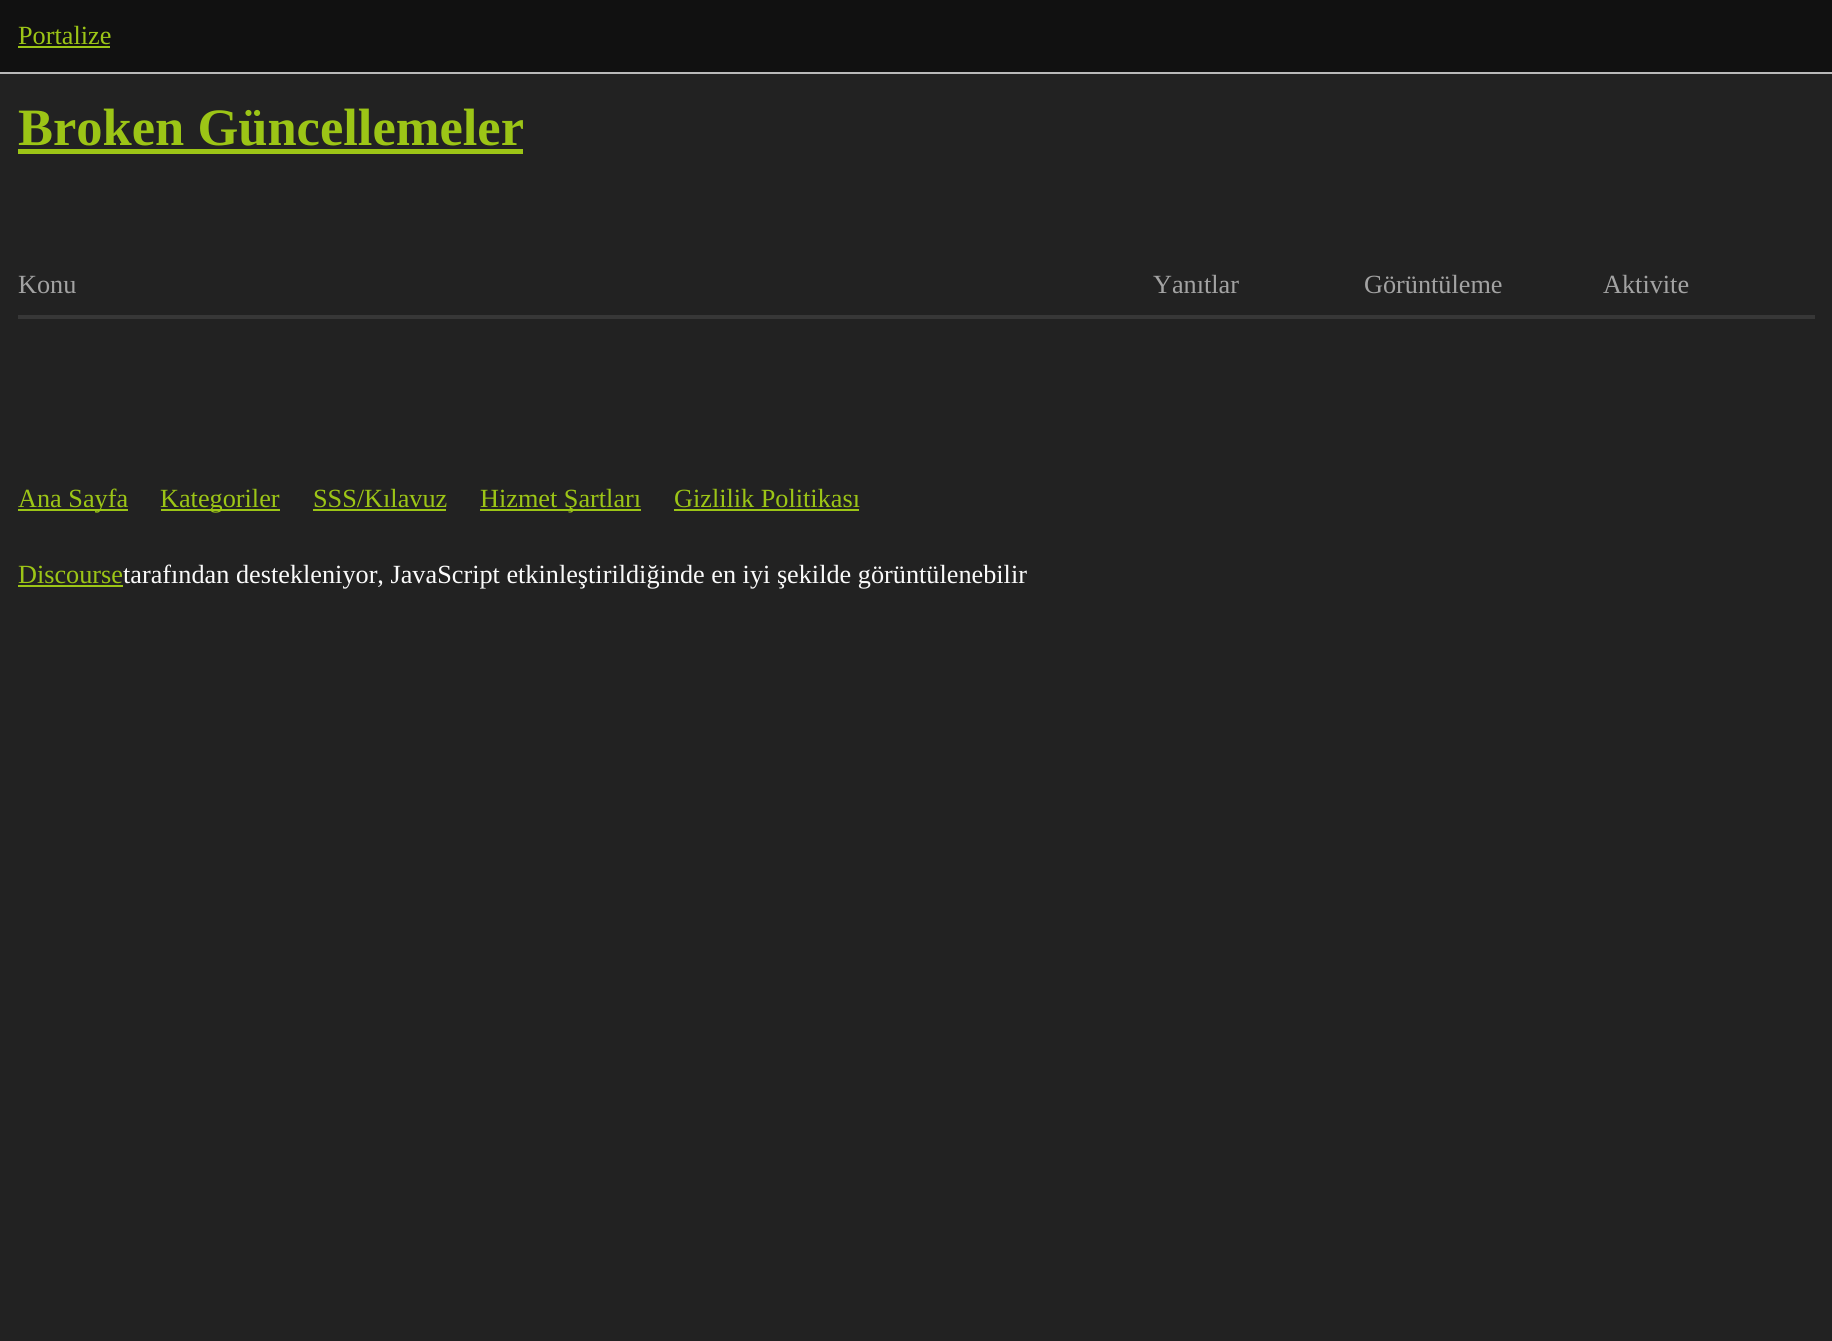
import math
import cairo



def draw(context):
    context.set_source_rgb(34 / 255, 34 / 255, 34 / 255)
    context.paint()
    context.set_source_rgb(17 / 255, 17 / 255, 17 / 255)
    context.rectangle(0, 0, 1832, 72)
    context.fill()
    context.set_source_rgb(186 / 255, 186 / 255, 186 / 255)
    context.rectangle(0, 72, 1832, 2)
    context.fill()
    context.set_source_rgb(156 / 255, 197 / 255, 22 / 255)
    context.rectangle(18, 46, 92, 2)
    context.fill()
    context.rectangle(18, 149, 505, 5)
    context.fill()
    context.set_source_rgb(55 / 255, 55 / 255, 55 / 255)
    context.rectangle(18, 315, 1797, 4)
    context.fill()
    context.set_source_rgb(156 / 255, 197 / 255, 22 / 255)
    context.rectangle(18, 509, 110, 2)
    context.fill()
    context.rectangle(161, 509, 119, 2)
    context.fill()
    context.rectangle(313, 509, 133, 2)
    context.fill()
    context.rectangle(480, 509, 161, 2)
    context.fill()
    context.rectangle(674, 509, 185, 2)
    context.fill()
    context.rectangle(18, 585, 105, 2)
    context.fill()
    context.select_font_face("Liberation Serif")
    context.set_font_size(26.25)
    context.move_to(18, 44)
    context.show_text("Portalize")
    context.select_font_face("Liberation Serif", cairo.FontSlant.NORMAL, cairo.FontWeight.BOLD)
    context.set_font_size(52.5)
    context.move_to(18, 145)
    context.show_text("Broken Güncellemeler")
    context.select_font_face("Liberation Serif")
    context.set_font_size(26.25)
    context.set_source_rgb(163 / 255, 163 / 255, 163 / 255)
    context.move_to(18, 293)
    context.show_text("Konu")
    context.move_to(1153, 293)
    context.show_text("Yanıtlar")
    context.move_to(1364, 293)
    context.show_text("Görüntüleme")
    context.move_to(1603, 293)
    context.show_text("Aktivite")
    context.set_source_rgb(156 / 255, 197 / 255, 22 / 255)
    context.move_to(18, 507)
    context.show_text("Ana Sayfa")
    context.move_to(160, 507)
    context.show_text("Kategoriler")
    context.move_to(313, 507)
    context.show_text("SSS/Kılavuz")
    context.move_to(480, 507)
    context.show_text("Hizmet Şartları")
    context.move_to(674, 507)
    context.show_text("Gizlilik Politikası")
    context.move_to(18, 583)
    context.show_text("Discourse")
    context.set_source_rgb(250 / 255, 250 / 255, 250 / 255)
    context.move_to(123, 583)
    context.show_text("tarafından destekleniyor, JavaScript etkinleştirildiğinde en iyi şekilde görüntülenebilir")


surface = cairo.ImageSurface(cairo.Format.RGB24, 1832, 1341)
context = cairo.Context(surface)
options = cairo.FontOptions()
options.set_hint_metrics(cairo.HintMetrics.OFF)
options.set_hint_style(cairo.HintStyle.NONE)
context.set_font_options(options)
context.set_miter_limit(4)
draw(context)
surface.write_to_png("out.png")
